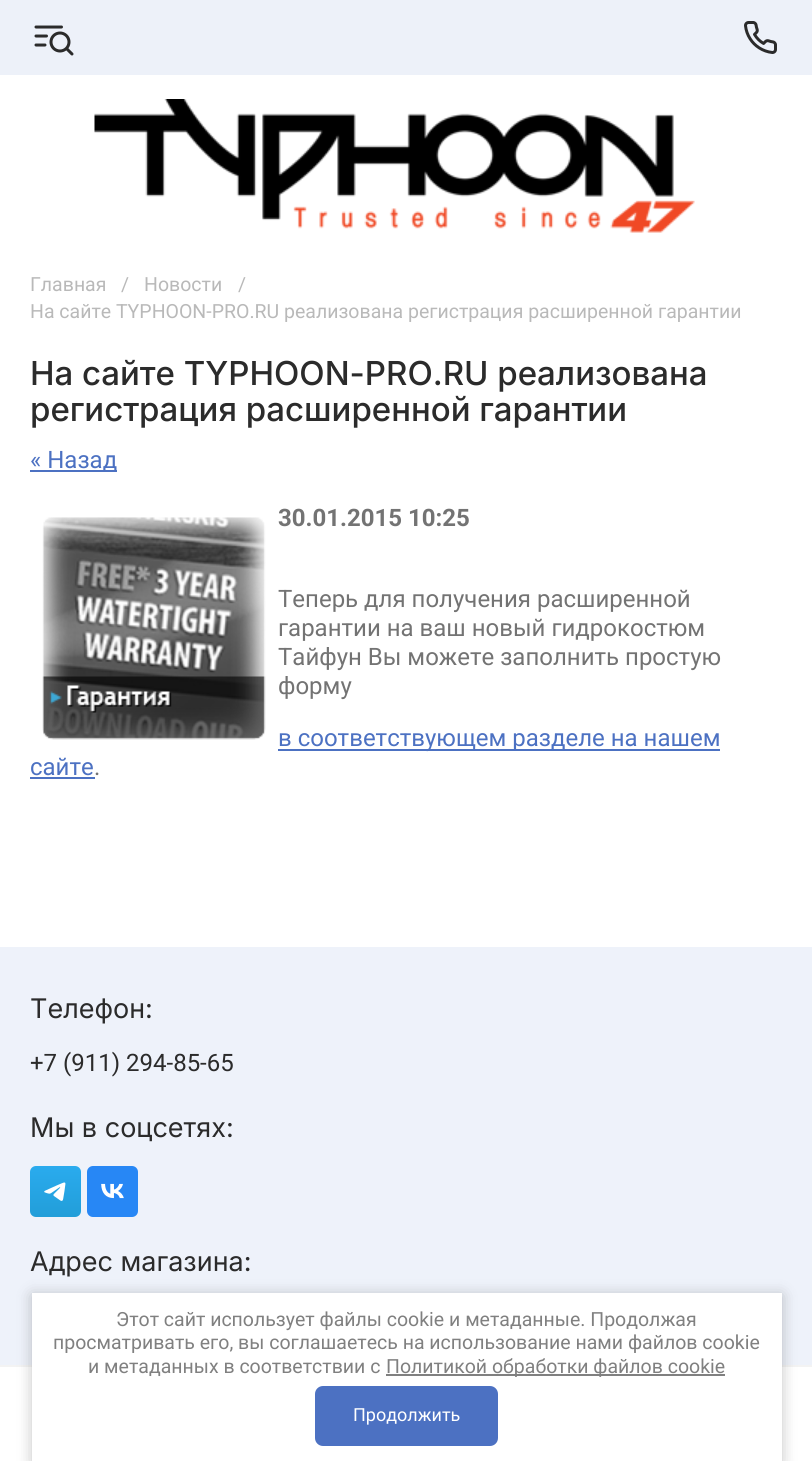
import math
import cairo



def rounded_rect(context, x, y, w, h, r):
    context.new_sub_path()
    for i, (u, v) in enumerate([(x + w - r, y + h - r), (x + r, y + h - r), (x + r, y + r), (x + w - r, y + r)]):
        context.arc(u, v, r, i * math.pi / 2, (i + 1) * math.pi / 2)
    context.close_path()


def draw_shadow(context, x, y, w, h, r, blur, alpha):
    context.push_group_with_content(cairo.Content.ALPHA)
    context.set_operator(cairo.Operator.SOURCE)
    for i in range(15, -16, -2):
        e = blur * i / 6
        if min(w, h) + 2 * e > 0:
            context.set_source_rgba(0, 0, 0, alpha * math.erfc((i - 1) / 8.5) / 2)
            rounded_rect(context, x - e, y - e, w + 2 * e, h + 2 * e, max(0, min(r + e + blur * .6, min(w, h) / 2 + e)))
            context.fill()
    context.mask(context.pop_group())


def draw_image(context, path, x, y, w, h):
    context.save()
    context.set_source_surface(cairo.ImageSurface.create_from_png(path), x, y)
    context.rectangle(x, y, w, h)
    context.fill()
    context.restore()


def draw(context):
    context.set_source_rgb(1, 1, 1)
    context.paint()
    context.set_source_rgb(237 / 255, 241 / 255, 249 / 255)
    context.rectangle(0, 0, 812, 75)
    context.fill()
    draw_image(context, "images/1.png", 34, 25, 40, 31)
    draw_image(context, "images/2.png", 744, 21, 33, 33)
    draw_image(context, "images/3.png", 94, 99, 601, 134)
    context.set_source_rgb(76 / 255, 113 / 255, 194 / 255)
    context.rectangle(30, 470, 87, 2)
    context.fill()
    draw_image(context, "images/4.png", 42, 517, 224, 223)
    context.rectangle(278, 749, 442, 2)
    context.fill()
    context.rectangle(30, 777, 65, 2)
    context.fill()
    context.set_source_rgb(238 / 255, 242 / 255, 250 / 255)
    context.rectangle(0, 947, 812, 418)
    context.fill()
    draw_image(context, "images/5.png", 30, 1166, 51, 51)
    draw_image(context, "images/6.png", 87, 1166, 51, 51)
    context.set_source_rgb(243 / 255, 243 / 255, 243 / 255)
    context.rectangle(0, 1365, 812, 2)
    context.fill()
    context.set_source_rgb(0, 0, 0)
    draw_shadow(context, 32, 1295, 750, 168, 0, 7.5, 0.23)
    context.set_source_rgb(1, 1, 1)
    context.rectangle(32, 1293, 750, 168)
    context.fill()
    context.set_source_rgb(128 / 255, 128 / 255, 128 / 255)
    context.rectangle(386, 1374, 339, 2)
    context.fill()
    context.set_source_rgb(76 / 255, 113 / 255, 194 / 255)
    rounded_rect(context, 315, 1386, 183, 60, 8)
    context.fill()
    context.select_font_face("Roboto")
    context.set_font_size(19.5)
    context.set_source_rgb(185 / 255, 185 / 255, 185 / 255)
    context.move_to(30, 291)
    context.show_text("Главная")
    context.move_to(121, 291)
    context.show_text("/")
    context.move_to(144, 291)
    context.show_text("Новости")
    context.move_to(238, 291)
    context.show_text("/")
    context.move_to(30, 318)
    context.show_text("На сайте TYPHOON-PRO.RU реализована регистрация расширенной гарантии")
    context.select_font_face("Inter Medium")
    context.set_font_size(33)
    context.set_source_rgb(43 / 255, 43 / 255, 43 / 255)
    context.move_to(30, 385)
    context.show_text("На сайте TYPHOON-PRO.RU реализована")
    context.move_to(30, 421)
    context.show_text("регистрация расширенной гарантии")
    context.select_font_face("Roboto")
    context.set_font_size(24)
    context.set_source_rgb(76 / 255, 113 / 255, 194 / 255)
    context.move_to(30, 468)
    context.show_text("« Назад")
    context.select_font_face("Roboto", cairo.FontSlant.NORMAL, cairo.FontWeight.BOLD)
    context.set_source_rgb(115 / 255, 115 / 255, 115 / 255)
    context.move_to(278, 526)
    context.show_text("30.01.2015 10:25")
    context.select_font_face("Roboto")
    context.move_to(278, 607)
    context.show_text("Теперь для получения расширенной")
    context.move_to(278, 636)
    context.show_text("гарантии на ваш новый гидрокостюм")
    context.move_to(278, 665)
    context.show_text("Тайфун Вы можете заполнить простую")
    context.move_to(278, 694)
    context.show_text("форму")
    context.set_source_rgb(76 / 255, 113 / 255, 194 / 255)
    context.move_to(278, 746)
    context.show_text("в соответствующем разделе на нашем")
    context.move_to(30, 775)
    context.show_text("сайте")
    context.set_source_rgb(115 / 255, 115 / 255, 115 / 255)
    context.move_to(94, 775)
    context.show_text(".")
    context.select_font_face("Inter")
    context.set_font_size(27)
    context.set_source_rgb(43 / 255, 43 / 255, 43 / 255)
    context.move_to(30, 1018)
    context.show_text("Телефон:")
    context.select_font_face("Roboto")
    context.set_font_size(24)
    context.move_to(30, 1071)
    context.show_text("+7 (911) 294-85-65")
    context.select_font_face("Inter")
    context.set_font_size(27)
    context.move_to(30, 1137)
    context.show_text("Мы в соцсетях:")
    context.move_to(30, 1271)
    context.show_text("Адрес магазина:")
    context.select_font_face("Roboto")
    context.set_font_size(19.5)
    context.set_source_rgb(128 / 255, 128 / 255, 128 / 255)
    context.move_to(116, 1326)
    context.show_text("Этот сайт использует файлы cookie и метаданные. Продолжая")
    context.move_to(53, 1349)
    context.show_text("просматривать его, вы соглашаетесь на использование нами файлов cookie")
    context.move_to(88, 1373)
    context.show_text("и метаданных в соответствии с")
    context.move_to(386, 1373)
    context.show_text("Политикой обработки файлов cookie")
    context.set_font_size(18)
    context.set_source_rgb(1, 1, 1)
    context.move_to(353, 1421)
    context.show_text("Продолжить")


surface = cairo.ImageSurface(cairo.Format.RGB24, 812, 1461)
context = cairo.Context(surface)
options = cairo.FontOptions()
options.set_hint_metrics(cairo.HintMetrics.OFF)
options.set_hint_style(cairo.HintStyle.NONE)
context.set_font_options(options)
context.set_miter_limit(4)
draw(context)
surface.write_to_png("out.png")
